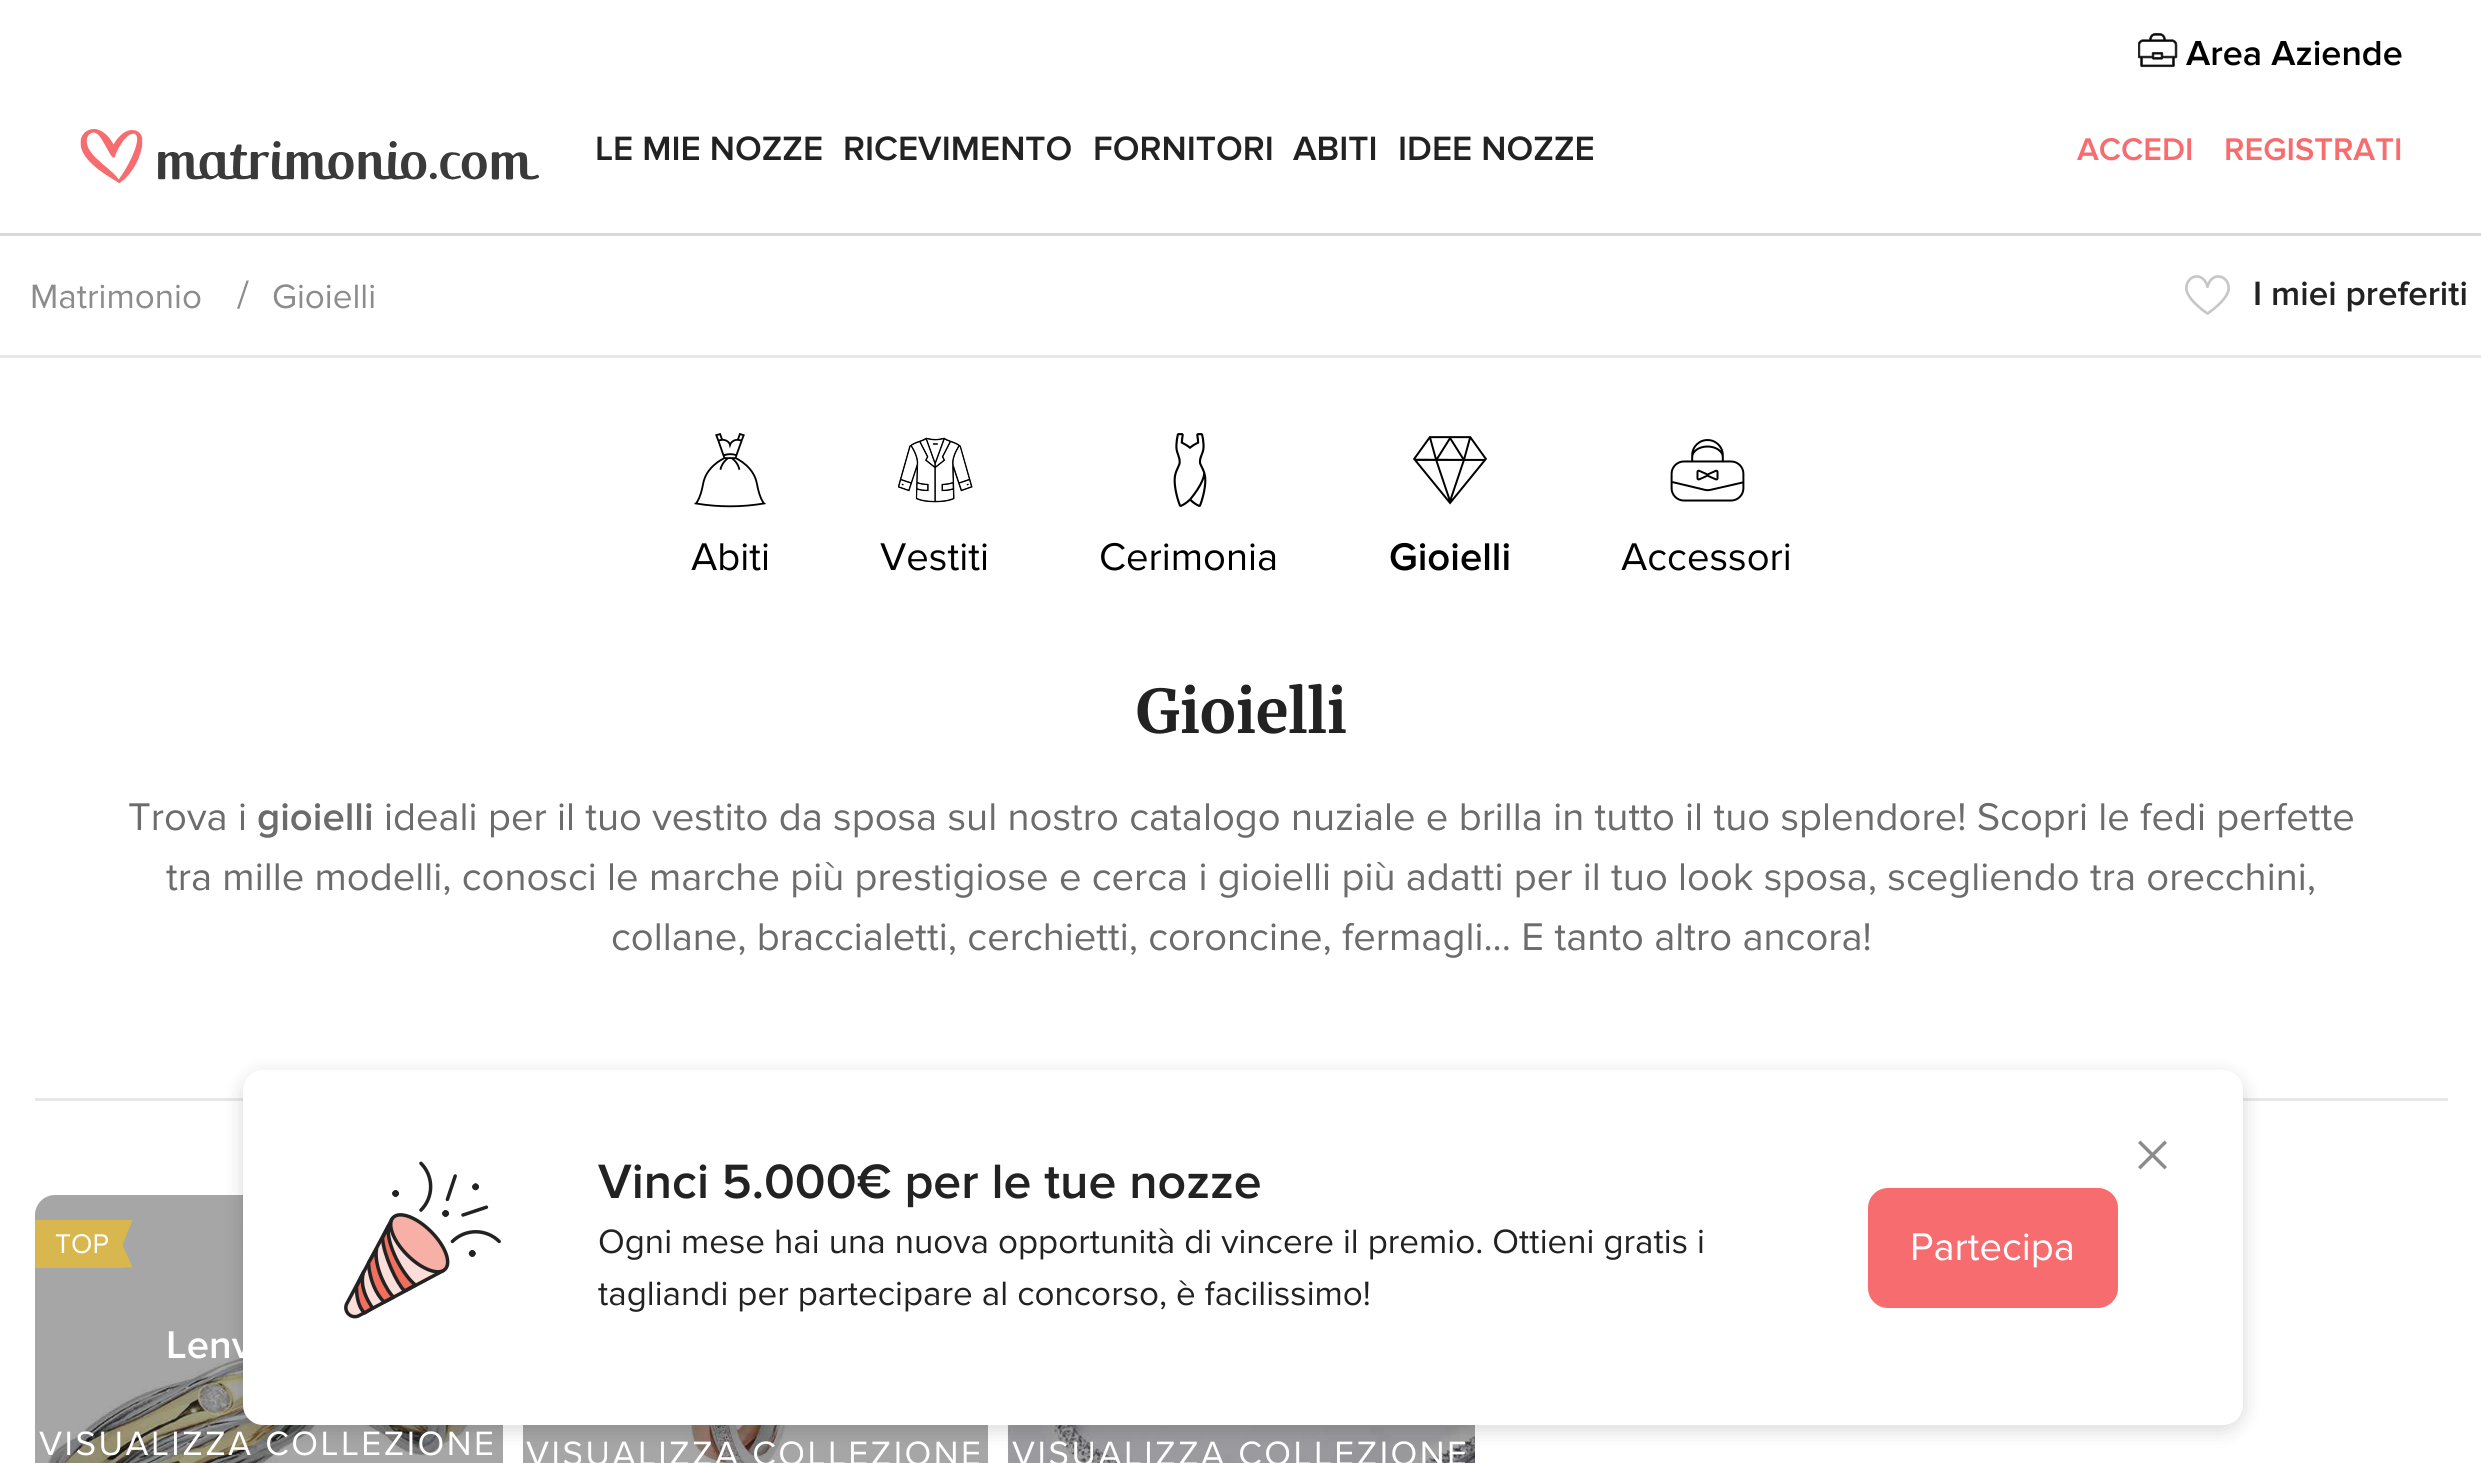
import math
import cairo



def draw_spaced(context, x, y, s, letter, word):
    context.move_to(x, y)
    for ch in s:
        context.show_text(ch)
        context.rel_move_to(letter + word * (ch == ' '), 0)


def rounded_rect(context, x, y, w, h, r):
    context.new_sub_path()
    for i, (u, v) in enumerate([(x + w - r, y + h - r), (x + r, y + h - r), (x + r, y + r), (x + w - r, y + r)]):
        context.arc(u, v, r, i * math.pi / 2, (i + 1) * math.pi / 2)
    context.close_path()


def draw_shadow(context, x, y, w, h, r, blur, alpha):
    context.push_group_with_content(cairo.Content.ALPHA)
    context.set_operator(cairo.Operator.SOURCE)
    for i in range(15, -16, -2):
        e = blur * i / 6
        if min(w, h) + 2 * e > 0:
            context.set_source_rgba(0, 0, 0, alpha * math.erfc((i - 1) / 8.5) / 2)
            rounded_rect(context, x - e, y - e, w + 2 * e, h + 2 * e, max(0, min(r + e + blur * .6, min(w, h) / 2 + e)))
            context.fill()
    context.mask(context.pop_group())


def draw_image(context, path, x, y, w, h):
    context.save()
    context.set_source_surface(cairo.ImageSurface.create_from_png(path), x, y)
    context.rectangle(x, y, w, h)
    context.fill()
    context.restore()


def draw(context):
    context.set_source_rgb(1, 1, 1)
    context.paint()
    draw_image(context, "images/1.png", 2138, 33, 40, 35)
    draw_image(context, "images/2.png", 80, 129, 460, 54)
    context.set_source_rgb(217 / 255, 217 / 255, 217 / 255)
    context.rectangle(0, 233, 2481, 3)
    context.fill()
    context.set_source_rgb(231 / 255, 231 / 255, 231 / 255)
    context.rectangle(0, 355, 2481, 3)
    context.fill()
    draw_image(context, "images/3.png", 2185, 275, 45, 40)
    draw_image(context, "images/4.png", 694, 433, 72, 75)
    draw_image(context, "images/5.png", 898, 437, 75, 66)
    draw_image(context, "images/6.png", 1173, 433, 34, 74)
    draw_image(context, "images/7.png", 1413, 436, 74, 69)
    draw_image(context, "images/8.png", 1670, 439, 75, 63)
    context.rectangle(35, 1098, 2413, 3)
    context.fill()
    draw_image(context, "images/9.png", 48, 1195, 442, 268)
    context.set_source_rgba(0, 0, 0, 0.35)
    rounded_rect(context, 35, 1195, 468, 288, 20)
    context.fill()
    context.set_source_rgb(216 / 255, 183 / 255, 78 / 255)
    context.rectangle(35, 1220, 78, 48)
    context.fill()
    context.new_path()
    context.move_to(112.5, 1220)
    context.line_to(132.5, 1220)
    context.line_to(122.5, 1245)
    context.close_path()
    context.move_to(132.5, 1267.5)
    context.line_to(112.5, 1267.5)
    context.line_to(122.5, 1245)
    context.close_path()
    context.fill()
    context.rectangle(113, 1221, 10, 47)
    context.fill()
    draw_image(context, "images/10.png", 684, 1425, 137, 38)
    context.set_source_rgba(0, 0, 0, 0.35)
    context.rectangle(523, 1425, 465, 38)
    context.fill()
    draw_image(context, "images/11.png", 1007, 1425, 468, 38)
    context.rectangle(1008, 1425, 467, 38)
    context.fill()
    context.set_source_rgb(0, 0, 0)
    draw_shadow(context, 243, 1075, 2000, 355, 20, 10, 0.15)
    context.set_source_rgb(1, 1, 1)
    rounded_rect(context, 243, 1070, 2000, 355, 20)
    context.fill()
    draw_image(context, "images/12.png", 2138, 1140, 29, 30)
    draw_image(context, "images/13.png", 344, 1161, 157, 158)
    context.set_source_rgb(247 / 255, 108 / 255, 111 / 255)
    rounded_rect(context, 1869.5, 1189.5, 247, 117, 18.5)
    context.fill_preserve()
    context.set_line_width(3)
    context.stroke()
    context.select_font_face("Proxima Nova SemiBold")
    context.set_font_size(36)
    context.set_source_rgb(0, 0, 0)
    context.move_to(2186, 65)
    context.show_text("Area Aziende")
    context.set_font_size(35)
    context.set_source_rgb(34 / 255, 34 / 255, 34 / 255)
    context.move_to(595, 160)
    context.show_text("LE MIE NOZZE")
    context.move_to(843, 160)
    context.show_text("RICEVIMENTO")
    context.move_to(1093, 160)
    context.show_text("FORNITORI")
    context.move_to(1293, 160)
    context.show_text("ABITI")
    context.move_to(1398, 160)
    context.show_text("IDEE NOZZE")
    context.set_font_size(32.5)
    context.set_source_rgb(247 / 255, 108 / 255, 111 / 255)
    context.move_to(2077, 160)
    context.show_text("ACCEDI")
    context.move_to(2224, 160)
    context.show_text("REGISTRATI")
    context.select_font_face("Proxima Nova")
    context.set_font_size(35)
    context.set_source_rgb(140 / 255, 140 / 255, 140 / 255)
    context.move_to(30, 308)
    context.show_text("Matrimonio")
    context.set_font_size(40)
    context.move_to(237, 308)
    context.show_text("/")
    context.set_font_size(35)
    context.move_to(272, 308)
    context.show_text("Gioielli")
    context.select_font_face("Proxima Nova SemiBold")
    context.set_source_rgb(34 / 255, 34 / 255, 34 / 255)
    context.move_to(2253, 305)
    context.show_text("I miei preferiti")
    context.select_font_face("Proxima Nova")
    context.set_font_size(40)
    context.set_source_rgb(0, 0, 0)
    context.move_to(691, 570)
    context.show_text("Abiti")
    context.move_to(880, 570)
    context.show_text("Vestiti")
    context.move_to(1099, 570)
    context.show_text("Cerimonia")
    context.select_font_face("Proxima Nova SemiBold")
    context.move_to(1389, 570)
    context.show_text("Gioielli")
    context.select_font_face("Proxima Nova")
    context.move_to(1621, 570)
    context.show_text("Accessori")
    context.select_font_face("Merriweather", cairo.FontSlant.NORMAL, cairo.FontWeight.BOLD)
    context.set_font_size(60)
    context.set_source_rgb(34 / 255, 34 / 255, 34 / 255)
    context.move_to(1136, 733)
    context.show_text("Gioielli")
    context.select_font_face("Proxima Nova")
    context.set_font_size(40)
    context.set_source_rgb(108 / 255, 108 / 255, 108 / 255)
    context.move_to(128, 830)
    context.show_text("Trova i")
    context.select_font_face("Proxima Nova SemiBold")
    context.move_to(257, 830)
    context.show_text("gioielli")
    context.select_font_face("Proxima Nova")
    context.move_to(384, 830)
    context.show_text("ideali per il tuo vestito da sposa sul nostro catalogo nuziale e brilla in tutto il tuo splendore! Scopri le fedi perfette")
    context.move_to(166, 890)
    context.show_text("tra mille modelli, conosci le marche più prestigiose e cerca i gioielli più adatti per il tuo look sposa, scegliendo tra orecchini,")
    context.move_to(611, 950)
    context.show_text("collane, braccialetti, cerchietti, coroncine, fermagli... E tanto altro ancora!")
    context.set_font_size(28)
    context.set_source_rgb(1, 1, 1)
    context.move_to(55, 1253)
    context.show_text("TOP")
    context.select_font_face("Proxima Nova SemiBold")
    context.set_font_size(40)
    context.move_to(166, 1358)
    context.show_text("Lenv")
    context.select_font_face("Proxima Nova")
    context.set_font_size(35)
    draw_spaced(context, 39, 1455, "VISUALIZZA COLLEZIONE", 2.5, 0)
    draw_spaced(context, 526, 1465, "VISUALIZZA COLLEZIONE", 2.5, 0)
    draw_spaced(context, 1012, 1465, "VISUALIZZA COLLEZIONE", 2.5, 0)
    context.select_font_face("Proxima Nova SemiBold")
    context.set_font_size(50)
    context.set_source_rgb(34 / 255, 34 / 255, 34 / 255)
    context.move_to(598, 1198)
    context.show_text("Vinci 5.000€ per le tue nozze")
    context.select_font_face("Proxima Nova")
    context.set_font_size(35)
    context.move_to(598, 1253)
    context.show_text("Ogni mese hai una nuova opportunità di vincere il premio. Ottieni gratis i")
    context.move_to(598, 1305)
    context.show_text("tagliandi per partecipare al concorso, è facilissimo!")
    context.set_font_size(40)
    context.set_source_rgb(1, 1, 1)
    context.move_to(1910, 1260)
    context.show_text("Partecipa")


surface = cairo.ImageSurface(cairo.Format.RGB24, 2481, 1463)
context = cairo.Context(surface)
options = cairo.FontOptions()
options.set_hint_metrics(cairo.HintMetrics.OFF)
options.set_hint_style(cairo.HintStyle.NONE)
context.set_font_options(options)
context.set_miter_limit(4)
draw(context)
surface.write_to_png("out.png")
